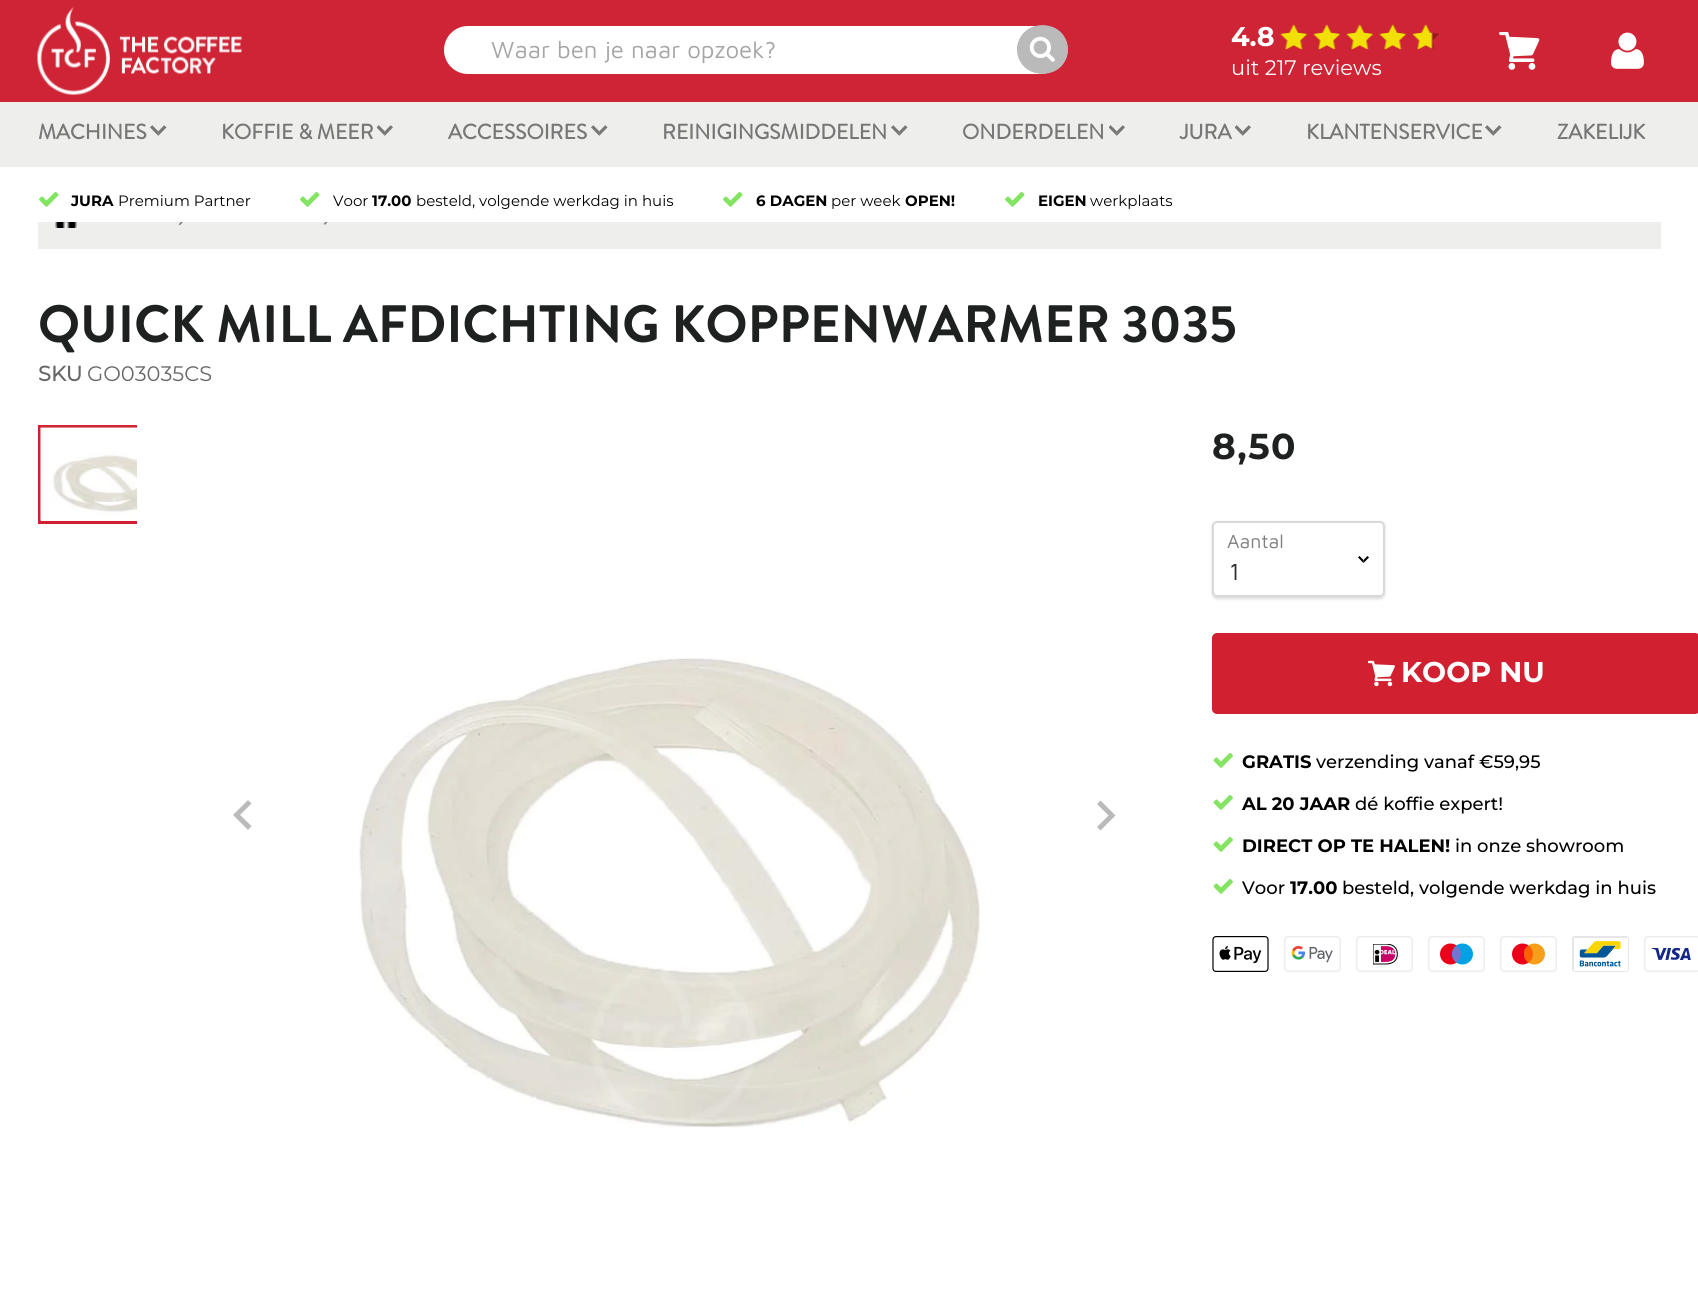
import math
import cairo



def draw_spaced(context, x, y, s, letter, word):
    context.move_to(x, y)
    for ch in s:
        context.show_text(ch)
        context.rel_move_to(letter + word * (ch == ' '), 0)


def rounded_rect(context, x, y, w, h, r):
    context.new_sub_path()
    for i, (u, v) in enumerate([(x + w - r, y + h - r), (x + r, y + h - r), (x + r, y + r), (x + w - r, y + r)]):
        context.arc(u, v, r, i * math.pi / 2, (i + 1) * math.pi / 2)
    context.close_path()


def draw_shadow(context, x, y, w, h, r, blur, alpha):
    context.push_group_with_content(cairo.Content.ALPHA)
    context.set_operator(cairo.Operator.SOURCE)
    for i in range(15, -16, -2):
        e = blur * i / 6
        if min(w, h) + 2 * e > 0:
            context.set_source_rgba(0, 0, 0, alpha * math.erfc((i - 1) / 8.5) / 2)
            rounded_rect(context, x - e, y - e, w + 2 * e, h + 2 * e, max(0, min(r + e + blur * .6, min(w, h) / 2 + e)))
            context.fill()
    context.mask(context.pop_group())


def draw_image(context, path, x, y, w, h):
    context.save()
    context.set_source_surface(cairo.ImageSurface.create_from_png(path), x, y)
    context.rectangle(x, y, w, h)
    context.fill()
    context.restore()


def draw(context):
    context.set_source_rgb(1, 1, 1)
    context.paint()
    context.set_source_rgb(207 / 255, 36 / 255, 53 / 255)
    context.rectangle(0, 0, 1698, 102)
    context.fill()
    draw_image(context, "images/1.png", 37, 7, 205, 88)
    context.set_source_rgb(1, 1, 1)
    rounded_rect(context, 444, 26, 620, 48, 24)
    context.fill()
    context.set_source_rgb(186 / 255, 186 / 255, 186 / 255)
    context.new_path()
    context.move_to(1042.5, 25.5)
    context.curve_to(1056.5, 25.5, 1068, 36, 1068, 49.5)
    context.curve_to(1068, 63, 1056.5, 73.5, 1042.5, 73.5)
    context.curve_to(1028.5, 73.5, 1017, 63, 1017, 49.5)
    context.curve_to(1017, 36, 1028.5, 25.5, 1042.5, 25.5)
    context.close_path()
    context.fill()
    context.new_path()
    context.move_to(1042.5, 26)
    context.curve_to(1075, 26, 1075, 73, 1042.5, 73)
    context.curve_to(1010, 73, 1010, 26, 1042.5, 26)
    context.close_path()
    context.set_line_width(1.5)
    context.stroke()
    draw_image(context, "images/2.png", 1029, 36, 26, 26)
    draw_image(context, "images/4.png", 1281, 24, 158, 26)
    draw_image(context, "images/3.png", 1280, 24, 153, 26)
    draw_image(context, "images/5.png", 1499, 32, 41, 38)
    draw_image(context, "images/6.png", 1611, 32, 33, 37)
    context.set_source_rgb(238 / 255, 238 / 255, 237 / 255)
    context.rectangle(0, 102, 1698, 65)
    context.fill()
    draw_image(context, "images/7.png", 150, 125, 17, 11)
    draw_image(context, "images/8.png", 377, 125, 16, 11)
    draw_image(context, "images/7.png", 591, 125, 17, 11)
    draw_image(context, "images/7.png", 891, 125, 17, 11)
    draw_image(context, "images/8.png", 1109, 125, 16, 11)
    draw_image(context, "images/8.png", 1235, 125, 16, 11)
    draw_image(context, "images/7.png", 1485, 125, 17, 11)
    draw_image(context, "images/9.png", 39, 191, 20, 16)
    draw_image(context, "images/9.png", 300, 191, 20, 16)
    draw_image(context, "images/9.png", 723, 191, 20, 16)
    draw_image(context, "images/9.png", 1005, 191, 20, 16)
    context.rectangle(38, 222, 1623, 27)
    context.fill()
    draw_image(context, "images/10.png", 55, 222, 22, 6)
    draw_image(context, "images/11.png", 178, 222, 5, 4)
    draw_image(context, "images/12.png", 323, 222, 5, 3)
    context.save()
    context.rectangle(38, 419, 99, 111)
    context.clip()
    context.rectangle(39.5, 426.5, 138, 96)
    context.set_source_rgb(209 / 255, 33 / 255, 49 / 255)
    context.set_line_width(3)
    context.stroke()
    context.restore()
    draw_image(context, "images/13.png", 40, 426, 97, 95)
    context.set_source_rgb(186 / 255, 186 / 255, 186 / 255)
    context.new_path()
    context.move_to(251.5, 826)
    context.line_to(240, 815)
    context.line_to(251.5, 803.5)
    context.line_to(248, 800)
    context.line_to(233, 815)
    context.line_to(248, 830)
    context.close_path()
    context.fill()
    draw_image(context, "images/14.png", 359, 658, 624, 471)
    context.new_path()
    context.move_to(1097, 827)
    context.line_to(1108.5, 815.5)
    context.line_to(1097, 804)
    context.line_to(1100.5, 800.5)
    context.line_to(1115.5, 815.5)
    context.line_to(1100.5, 830.5)
    context.close_path()
    context.fill()
    context.save()
    context.set_fill_rule(cairo.FillRule.EVEN_ODD)
    context.new_path()
    context.move_to(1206, 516)
    context.line_to(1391, 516)
    context.line_to(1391, 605)
    context.line_to(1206, 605)
    context.close_path()
    context.move_to(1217, 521)
    context.line_to(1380, 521)
    context.curve_to(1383, 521, 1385, 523, 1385, 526)
    context.line_to(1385, 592)
    context.curve_to(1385, 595, 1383, 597, 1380, 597)
    context.line_to(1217, 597)
    context.curve_to(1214, 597, 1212, 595, 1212, 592)
    context.line_to(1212, 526)
    context.curve_to(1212, 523, 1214, 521, 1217, 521)
    context.close_path()
    context.clip()
    context.set_source_rgb(0, 0, 0)
    draw_shadow(context, 1212, 522, 173, 77, 5, 1.5, 0.15)
    context.restore()
    rounded_rect(context, 1213, 522, 171, 74, 4)
    context.set_source_rgba(127 / 255, 127 / 255, 127 / 255, 0.3)
    context.set_line_width(2)
    context.stroke()
    draw_image(context, "images/15.png", 1358, 556, 11, 7)
    context.set_source_rgb(209 / 255, 33 / 255, 49 / 255)
    rounded_rect(context, 1213, 634, 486, 79, 4)
    context.fill_preserve()
    context.stroke()
    draw_image(context, "images/16.png", 1367, 660, 28, 27)
    draw_image(context, "images/17.png", 1213, 752, 20, 16)
    draw_image(context, "images/17.png", 1213, 794, 20, 16)
    draw_image(context, "images/17.png", 1213, 836, 20, 16)
    draw_image(context, "images/17.png", 1213, 878, 20, 16)
    draw_image(context, "images/18.png", 1212, 936, 57, 36)
    draw_image(context, "images/19.png", 1284, 936, 57, 36)
    draw_image(context, "images/20.png", 1356, 936, 57, 36)
    draw_image(context, "images/21.png", 1428, 936, 57, 36)
    draw_image(context, "images/22.png", 1500, 936, 57, 36)
    rounded_rect(context, 1573, 937, 55, 34, 2)
    context.set_source_rgb(230 / 255, 230 / 255, 230 / 255)
    context.stroke()
    context.set_source_rgb(1, 1, 1)
    context.rectangle(1574, 938, 54, 33)
    context.fill()
    draw_image(context, "images/23.png", 1579, 941, 42, 26)
    draw_image(context, "images/24.png", 1644, 936, 54, 36)
    context.select_font_face("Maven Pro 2")
    context.set_font_size(24)
    context.set_source_rgb(165 / 255, 166 / 255, 166 / 255)
    context.move_to(491, 58)
    context.show_text("Waar ben je naar opzoek?")
    context.select_font_face("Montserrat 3", cairo.FontSlant.NORMAL, cairo.FontWeight.BOLD)
    context.set_font_size(27)
    context.set_source_rgb(1, 1, 1)
    context.move_to(1231, 46)
    context.show_text("4.8")
    context.select_font_face("Montserrat")
    context.set_font_size(21)
    context.move_to(1231, 75)
    context.show_text("uit 217 reviews")
    context.select_font_face("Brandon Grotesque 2", cairo.FontSlant.NORMAL, cairo.FontWeight.BOLD)
    context.set_source_rgb(119 / 255, 119 / 255, 119 / 255)
    context.move_to(38, 139)
    context.show_text("MACHINES")
    context.move_to(221, 139)
    context.show_text("KOFFIE & MEER")
    context.move_to(448, 139)
    context.show_text("ACCESSOIRES")
    context.move_to(662, 139)
    context.show_text("REINIGINGSMIDDELEN")
    context.move_to(962, 139)
    context.show_text("ONDERDELEN")
    context.move_to(1180, 139)
    context.show_text("JURA")
    context.move_to(1306, 139)
    context.show_text("KLANTENSERVICE")
    context.move_to(1557, 139)
    context.show_text("ZAKELIJK")
    context.select_font_face("Montserrat", cairo.FontSlant.NORMAL, cairo.FontWeight.BOLD)
    context.set_font_size(15)
    context.set_source_rgb(0, 0, 0)
    context.move_to(71, 206)
    context.show_text("JURA")
    context.select_font_face("Montserrat")
    context.move_to(118, 206)
    context.show_text("Premium Partner")
    context.move_to(333, 206)
    context.show_text("Voor")
    context.select_font_face("Montserrat", cairo.FontSlant.NORMAL, cairo.FontWeight.BOLD)
    context.move_to(372, 206)
    context.show_text("17.00")
    context.select_font_face("Montserrat")
    context.move_to(416, 206)
    context.show_text("besteld, volgende werkdag in huis")
    context.select_font_face("Montserrat", cairo.FontSlant.NORMAL, cairo.FontWeight.BOLD)
    context.move_to(756, 206)
    context.show_text("6 DAGEN")
    context.select_font_face("Montserrat")
    context.move_to(831, 206)
    context.show_text("per week")
    context.select_font_face("Montserrat", cairo.FontSlant.NORMAL, cairo.FontWeight.BOLD)
    context.move_to(905, 206)
    context.show_text("OPEN!")
    context.move_to(1038, 206)
    context.show_text("EIGEN")
    context.select_font_face("Montserrat")
    context.move_to(1090, 206)
    context.show_text("werkplaats")
    context.select_font_face("Brandon Grotesque", cairo.FontSlant.NORMAL, cairo.FontWeight.BOLD)
    context.set_font_size(52.5)
    context.set_source_rgb(31 / 255, 32 / 255, 32 / 255)
    context.move_to(38, 342)
    context.show_text("QUICK MILL AFDICHTING KOPPENWARMER 3035")
    context.select_font_face("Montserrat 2", cairo.FontSlant.NORMAL, cairo.FontWeight.BOLD)
    context.set_font_size(21)
    context.set_source_rgb(102 / 255, 102 / 255, 102 / 255)
    context.move_to(38, 381)
    context.show_text("SKU")
    context.select_font_face("Montserrat")
    context.move_to(87, 381)
    context.show_text("GO03035CS")
    context.select_font_face("Montserrat", cairo.FontSlant.NORMAL, cairo.FontWeight.BOLD)
    context.set_font_size(36)
    context.set_source_rgb(31 / 255, 32 / 255, 32 / 255)
    draw_spaced(context, 1212, 459, "8,50", 1.5, 0)
    context.select_font_face("Maven Pro")
    context.set_font_size(19.5)
    context.set_source_rgb(128 / 255, 128 / 255, 128 / 255)
    context.move_to(1227, 548)
    context.show_text("Aantal")
    context.set_font_size(24)
    context.set_source_rgb(43 / 255, 43 / 255, 43 / 255)
    context.move_to(1229, 580)
    context.show_text("1")
    context.select_font_face("Montserrat", cairo.FontSlant.NORMAL, cairo.FontWeight.BOLD)
    context.set_font_size(28.5)
    context.set_source_rgb(1, 1, 1)
    context.move_to(1401, 682)
    context.show_text("KOOP NU")
    context.set_font_size(18)
    context.set_source_rgb(0, 0, 0)
    context.move_to(1242, 768)
    context.show_text("GRATIS")
    context.select_font_face("Montserrat Medium")
    context.move_to(1316, 768)
    context.show_text("verzending vanaf €59,95")
    context.select_font_face("Montserrat", cairo.FontSlant.NORMAL, cairo.FontWeight.BOLD)
    context.move_to(1242, 810)
    context.show_text("AL 20 JAAR")
    context.select_font_face("Montserrat Medium")
    context.move_to(1355, 810)
    context.show_text("dé koffie expert!")
    context.select_font_face("Montserrat", cairo.FontSlant.NORMAL, cairo.FontWeight.BOLD)
    context.move_to(1242, 852)
    context.show_text("DIRECT OP TE HALEN!")
    context.select_font_face("Montserrat Medium")
    context.move_to(1455, 852)
    context.show_text("in onze showroom")
    context.move_to(1242, 894)
    context.show_text("Voor")
    context.select_font_face("Montserrat", cairo.FontSlant.NORMAL, cairo.FontWeight.BOLD)
    context.move_to(1290, 894)
    context.show_text("17.00")
    context.select_font_face("Montserrat Medium")
    context.move_to(1342, 894)
    context.show_text("besteld, volgende werkdag in huis")


surface = cairo.ImageSurface(cairo.Format.RGB24, 1698, 1304)
context = cairo.Context(surface)
options = cairo.FontOptions()
options.set_hint_metrics(cairo.HintMetrics.OFF)
options.set_hint_style(cairo.HintStyle.NONE)
context.set_font_options(options)
context.set_miter_limit(4)
draw(context)
surface.write_to_png("out.png")
